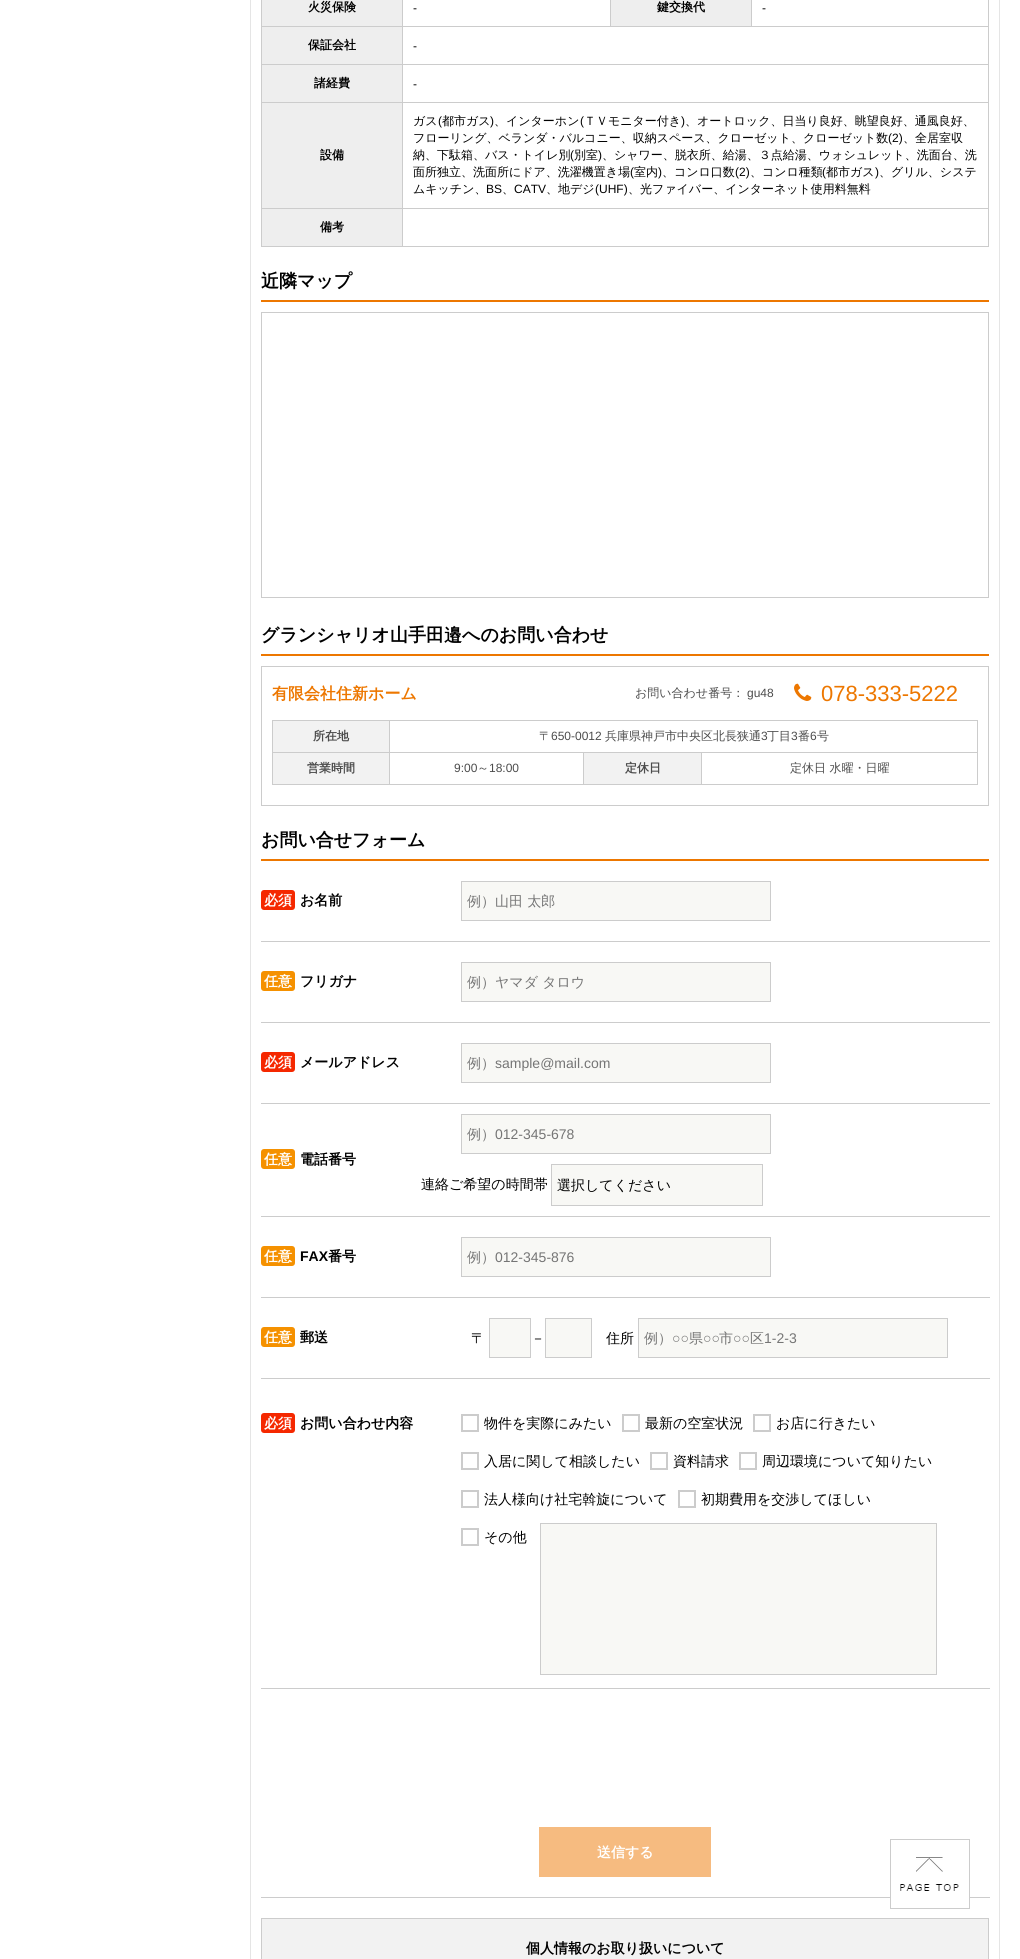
import math
import cairo



def rounded_rect(context, x, y, w, h, r):
    context.new_sub_path()
    for i, (u, v) in enumerate([(x + w - r, y + h - r), (x + r, y + h - r), (x + r, y + r), (x + w - r, y + r)]):
        context.arc(u, v, r, i * math.pi / 2, (i + 1) * math.pi / 2)
    context.close_path()


def draw_image(context, path, x, y, w, h):
    context.save()
    context.set_source_surface(cairo.ImageSurface.create_from_png(path), x, y)
    context.rectangle(x, y, w, h)
    context.fill()
    context.restore()


def draw(context):
    context.set_source_rgb(1, 1, 1)
    context.paint()
    context.rectangle(250.5, -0.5, 749, 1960)
    context.set_source_rgb(229 / 255, 229 / 255, 229 / 255)
    context.set_line_width(1)
    context.stroke()
    context.set_source_rgb(204 / 255, 204 / 255, 204 / 255)
    context.rectangle(261, 0, 1, 247)
    context.fill()
    context.set_source_rgb(238 / 255, 238 / 255, 238 / 255)
    context.rectangle(262, 0, 140, 26)
    context.fill()
    context.set_source_rgb(204 / 255, 204 / 255, 204 / 255)
    context.rectangle(988, 0, 1, 247)
    context.fill()
    context.rectangle(751, 26, 238, 1)
    context.fill()
    context.rectangle(751, 0, 1, 27)
    context.fill()
    context.rectangle(610, 26, 142, 1)
    context.fill()
    context.rectangle(610, 0, 1, 27)
    context.fill()
    context.rectangle(402, 246, 587, 1)
    context.fill()
    context.rectangle(402, 208, 1, 39)
    context.fill()
    context.rectangle(402, 208, 587, 1)
    context.fill()
    context.rectangle(402, 102, 1, 107)
    context.fill()
    context.rectangle(402, 102, 587, 1)
    context.fill()
    context.rectangle(402, 64, 1, 39)
    context.fill()
    context.rectangle(402, 64, 587, 1)
    context.fill()
    context.rectangle(402, 26, 1, 39)
    context.fill()
    context.rectangle(402, 26, 209, 1)
    context.fill()
    context.rectangle(402, 0, 1, 27)
    context.fill()
    context.rectangle(261, 26, 142, 1)
    context.fill()
    context.set_source_rgb(238 / 255, 238 / 255, 238 / 255)
    context.rectangle(611, 0, 140, 26)
    context.fill()
    context.rectangle(262, 27, 140, 37)
    context.fill()
    context.set_source_rgb(204 / 255, 204 / 255, 204 / 255)
    context.rectangle(261, 64, 142, 1)
    context.fill()
    context.set_source_rgb(238 / 255, 238 / 255, 238 / 255)
    context.rectangle(262, 65, 140, 37)
    context.fill()
    context.set_source_rgb(204 / 255, 204 / 255, 204 / 255)
    context.rectangle(261, 102, 142, 1)
    context.fill()
    context.set_source_rgb(238 / 255, 238 / 255, 238 / 255)
    context.rectangle(262, 103, 140, 105)
    context.fill()
    context.set_source_rgb(204 / 255, 204 / 255, 204 / 255)
    context.rectangle(261, 208, 142, 1)
    context.fill()
    context.set_source_rgb(238 / 255, 238 / 255, 238 / 255)
    context.rectangle(262, 209, 140, 37)
    context.fill()
    context.set_source_rgb(204 / 255, 204 / 255, 204 / 255)
    context.rectangle(261, 246, 142, 1)
    context.fill()
    context.set_source_rgb(237 / 255, 119 / 255, 0)
    context.rectangle(261, 300, 728, 2)
    context.fill()
    context.rectangle(261.5, 312.5, 727, 285)
    context.set_source_rgb(204 / 255, 204 / 255, 204 / 255)
    context.stroke()
    context.set_source_rgb(237 / 255, 119 / 255, 0)
    context.rectangle(261, 654, 728, 2)
    context.fill()
    context.rectangle(261.5, 666.5, 727, 139)
    context.set_source_rgb(204 / 255, 204 / 255, 204 / 255)
    context.stroke()
    draw_image(context, "images/1.png", 794, 683, 18, 18)
    context.rectangle(272, 720, 706, 1)
    context.fill()
    context.rectangle(272, 720, 1, 65)
    context.fill()
    context.set_source_rgb(242 / 255, 242 / 255, 242 / 255)
    context.rectangle(273, 721, 116, 31)
    context.fill()
    context.set_source_rgb(204 / 255, 204 / 255, 204 / 255)
    context.rectangle(977, 720, 1, 65)
    context.fill()
    context.rectangle(701, 784, 277, 1)
    context.fill()
    context.rectangle(701, 752, 1, 33)
    context.fill()
    context.rectangle(583, 784, 119, 1)
    context.fill()
    context.rectangle(583, 752, 1, 33)
    context.fill()
    context.rectangle(389, 784, 195, 1)
    context.fill()
    context.rectangle(389, 752, 1, 33)
    context.fill()
    context.rectangle(389, 752, 589, 1)
    context.fill()
    context.rectangle(389, 720, 1, 33)
    context.fill()
    context.rectangle(272, 752, 118, 1)
    context.fill()
    context.set_source_rgb(242 / 255, 242 / 255, 242 / 255)
    context.rectangle(273, 753, 116, 31)
    context.fill()
    context.set_source_rgb(204 / 255, 204 / 255, 204 / 255)
    context.rectangle(272, 784, 118, 1)
    context.fill()
    context.set_source_rgb(242 / 255, 242 / 255, 242 / 255)
    context.rectangle(584, 753, 117, 31)
    context.fill()
    context.set_source_rgb(237 / 255, 119 / 255, 0)
    context.rectangle(261, 859, 728, 2)
    context.fill()
    context.set_source_rgb(204 / 255, 204 / 255, 204 / 255)
    context.rectangle(261, 941, 729, 1)
    context.fill()
    context.set_source_rgb(245 / 255, 40 / 255, 0)
    rounded_rect(context, 261, 890, 34, 20, 3)
    context.fill()
    context.set_source_rgb(248 / 255, 248 / 255, 245 / 255)
    context.rectangle(461.5, 881.5, 309, 39)
    context.fill_preserve()
    context.set_source_rgb(204 / 255, 204 / 255, 204 / 255)
    context.stroke()
    context.rectangle(261, 1022, 729, 1)
    context.fill()
    context.set_source_rgb(245 / 255, 145 / 255, 0)
    rounded_rect(context, 261, 971, 34, 20, 3)
    context.fill()
    context.set_source_rgb(248 / 255, 248 / 255, 245 / 255)
    context.rectangle(461.5, 962.5, 309, 39)
    context.fill_preserve()
    context.set_source_rgb(204 / 255, 204 / 255, 204 / 255)
    context.stroke()
    context.rectangle(261, 1103, 729, 1)
    context.fill()
    context.set_source_rgb(245 / 255, 40 / 255, 0)
    rounded_rect(context, 261, 1052, 34, 20, 3)
    context.fill()
    context.set_source_rgb(248 / 255, 248 / 255, 245 / 255)
    context.rectangle(461.5, 1043.5, 309, 39)
    context.fill_preserve()
    context.set_source_rgb(204 / 255, 204 / 255, 204 / 255)
    context.stroke()
    context.rectangle(261, 1216, 729, 1)
    context.fill()
    context.set_source_rgb(245 / 255, 145 / 255, 0)
    rounded_rect(context, 261, 1149, 34, 20, 3)
    context.fill()
    context.set_source_rgb(248 / 255, 248 / 255, 245 / 255)
    context.rectangle(461.5, 1114.5, 309, 39)
    context.fill_preserve()
    context.set_source_rgb(204 / 255, 204 / 255, 204 / 255)
    context.stroke()
    context.set_source_rgb(248 / 255, 248 / 255, 245 / 255)
    context.rectangle(551.5, 1164.5, 211, 41)
    context.fill_preserve()
    context.set_source_rgb(204 / 255, 204 / 255, 204 / 255)
    context.stroke()
    context.rectangle(261, 1297, 729, 1)
    context.fill()
    context.set_source_rgb(245 / 255, 145 / 255, 0)
    rounded_rect(context, 261, 1246, 34, 20, 3)
    context.fill()
    context.set_source_rgb(248 / 255, 248 / 255, 245 / 255)
    context.rectangle(461.5, 1237.5, 309, 39)
    context.fill_preserve()
    context.set_source_rgb(204 / 255, 204 / 255, 204 / 255)
    context.stroke()
    context.rectangle(261, 1378, 729, 1)
    context.fill()
    context.set_source_rgb(245 / 255, 145 / 255, 0)
    rounded_rect(context, 261, 1327, 34, 20, 3)
    context.fill()
    context.set_source_rgb(248 / 255, 248 / 255, 245 / 255)
    context.rectangle(489.5, 1318.5, 41, 39)
    context.fill_preserve()
    context.set_source_rgb(204 / 255, 204 / 255, 204 / 255)
    context.stroke()
    context.set_source_rgb(248 / 255, 248 / 255, 245 / 255)
    context.rectangle(545.5, 1318.5, 46, 39)
    context.fill_preserve()
    context.set_source_rgb(204 / 255, 204 / 255, 204 / 255)
    context.stroke()
    context.set_source_rgb(248 / 255, 248 / 255, 245 / 255)
    context.rectangle(638.5, 1318.5, 309, 39)
    context.fill_preserve()
    context.set_source_rgb(204 / 255, 204 / 255, 204 / 255)
    context.stroke()
    context.rectangle(261, 1688, 729, 1)
    context.fill()
    context.set_source_rgb(245 / 255, 40 / 255, 0)
    rounded_rect(context, 261, 1413, 34, 20, 3)
    context.fill()
    context.rectangle(462, 1415, 16, 16)
    context.set_source_rgb(204 / 255, 204 / 255, 204 / 255)
    context.set_line_width(2)
    context.stroke()
    context.rectangle(623, 1415, 16, 16)
    context.stroke()
    context.rectangle(754, 1415, 16, 16)
    context.stroke()
    context.rectangle(462, 1453, 16, 16)
    context.stroke()
    context.rectangle(651, 1453, 16, 16)
    context.stroke()
    context.rectangle(740, 1453, 16, 16)
    context.stroke()
    context.rectangle(462, 1491, 16, 16)
    context.stroke()
    context.rectangle(679, 1491, 16, 16)
    context.stroke()
    context.rectangle(462, 1529, 16, 16)
    context.stroke()
    context.set_source_rgb(248 / 255, 248 / 255, 245 / 255)
    context.rectangle(540.5, 1523.5, 396, 151)
    context.fill_preserve()
    context.set_source_rgb(204 / 255, 204 / 255, 204 / 255)
    context.set_line_width(1)
    context.stroke()
    context.rectangle(261, 1897, 729, 1)
    context.fill()
    context.set_source_rgb(246 / 255, 187 / 255, 128 / 255)
    context.rectangle(539, 1827, 172, 50)
    context.fill()
    context.set_source_rgb(242 / 255, 242 / 255, 242 / 255)
    context.rectangle(261.5, 1918.5, 727, 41)
    context.fill_preserve()
    context.set_source_rgb(204 / 255, 204 / 255, 204 / 255)
    context.stroke()
    draw_image(context, "images/2.png", 890, 1839, 80, 70)
    context.select_font_face("WenQuanYi Zen Hei", cairo.FontSlant.NORMAL, cairo.FontWeight.BOLD)
    context.set_font_size(12)
    context.set_source_rgb(0, 0, 0)
    context.move_to(308, 11)
    context.show_text("火災保険")
    context.select_font_face("Liberation Sans")
    context.move_to(413, 12)
    context.show_text("-")
    context.select_font_face("WenQuanYi Zen Hei", cairo.FontSlant.NORMAL, cairo.FontWeight.BOLD)
    context.move_to(657, 11)
    context.show_text("鍵交換代")
    context.select_font_face("Liberation Sans")
    context.move_to(762, 12)
    context.show_text("-")
    context.select_font_face("WenQuanYi Zen Hei", cairo.FontSlant.NORMAL, cairo.FontWeight.BOLD)
    context.move_to(308, 49)
    context.show_text("保証会社")
    context.select_font_face("Liberation Sans")
    context.move_to(413, 50)
    context.show_text("-")
    context.select_font_face("WenQuanYi Zen Hei", cairo.FontSlant.NORMAL, cairo.FontWeight.BOLD)
    context.move_to(314, 87)
    context.show_text("諸経費")
    context.select_font_face("Liberation Sans")
    context.move_to(413, 88)
    context.show_text("-")
    context.select_font_face("WenQuanYi Zen Hei", cairo.FontSlant.NORMAL, cairo.FontWeight.BOLD)
    context.move_to(320, 159)
    context.show_text("設備")
    context.select_font_face("WenQuanYi Zen Hei Medium")
    context.move_to(413, 125)
    context.show_text("ガス")
    context.select_font_face("Liberation Sans")
    context.move_to(438, 125)
    context.show_text("(")
    context.select_font_face("WenQuanYi Zen Hei Medium")
    context.move_to(442, 125)
    context.show_text("都市ガス")
    context.select_font_face("Liberation Sans")
    context.move_to(490, 125)
    context.show_text(")")
    context.select_font_face("WenQuanYi Zen Hei Medium")
    context.move_to(494, 125)
    context.show_text("、インターホン")
    context.select_font_face("Liberation Sans")
    context.move_to(580, 125)
    context.show_text("(")
    context.select_font_face("WenQuanYi Zen Hei Medium")
    context.move_to(584, 125)
    context.show_text("ＴＶモニター付き")
    context.select_font_face("Liberation Sans")
    context.move_to(681, 125)
    context.show_text(")")
    context.select_font_face("WenQuanYi Zen Hei Medium")
    context.move_to(685, 125)
    context.show_text("、オートロック、日当り良好、眺望良好、通風良好、")
    context.move_to(413, 142)
    context.show_text("フローリング、ベランダ・バルコニー、収納スペース、クローゼット、クローゼット数")
    context.select_font_face("Liberation Sans")
    context.move_to(888, 142)
    context.show_text("(2)")
    context.select_font_face("WenQuanYi Zen Hei Medium")
    context.move_to(903, 142)
    context.show_text("、全居室収")
    context.move_to(413, 159)
    context.show_text("納、下駄箱、バス・トイレ別")
    context.select_font_face("Liberation Sans")
    context.move_to(570, 159)
    context.show_text("(")
    context.select_font_face("WenQuanYi Zen Hei Medium")
    context.move_to(574, 159)
    context.show_text("別室")
    context.select_font_face("Liberation Sans")
    context.move_to(598, 159)
    context.show_text(")")
    context.select_font_face("WenQuanYi Zen Hei Medium")
    context.move_to(602, 159)
    context.show_text("、シャワー、脱衣所、給湯、３点給湯、ウォシュレット、洗面台、洗")
    context.move_to(413, 176)
    context.show_text("面所独立、洗面所にドア、洗濯機置き場")
    context.select_font_face("Liberation Sans")
    context.move_to(630, 176)
    context.show_text("(")
    context.select_font_face("WenQuanYi Zen Hei Medium")
    context.move_to(634, 176)
    context.show_text("室内")
    context.select_font_face("Liberation Sans")
    context.move_to(658, 176)
    context.show_text(")")
    context.select_font_face("WenQuanYi Zen Hei Medium")
    context.move_to(662, 176)
    context.show_text("、コンロ口数")
    context.select_font_face("Liberation Sans")
    context.move_to(735, 176)
    context.show_text("(2)")
    context.select_font_face("WenQuanYi Zen Hei Medium")
    context.move_to(750, 176)
    context.show_text("、コンロ種類")
    context.select_font_face("Liberation Sans")
    context.move_to(822, 176)
    context.show_text("(")
    context.select_font_face("WenQuanYi Zen Hei Medium")
    context.move_to(826, 176)
    context.show_text("都市ガス")
    context.select_font_face("Liberation Sans")
    context.move_to(875, 176)
    context.show_text(")")
    context.select_font_face("WenQuanYi Zen Hei Medium")
    context.move_to(879, 176)
    context.show_text("、グリル、システ")
    context.move_to(413, 193)
    context.show_text("ムキッチン、")
    context.select_font_face("Liberation Sans")
    context.move_to(486, 193)
    context.show_text("BS")
    context.select_font_face("WenQuanYi Zen Hei Medium")
    context.move_to(502, 193)
    context.show_text("、")
    context.select_font_face("Liberation Sans")
    context.move_to(514, 193)
    context.show_text("CATV")
    context.select_font_face("WenQuanYi Zen Hei Medium")
    context.move_to(546, 193)
    context.show_text("、地デジ")
    context.select_font_face("Liberation Sans")
    context.move_to(595, 193)
    context.show_text("(UHF)")
    context.select_font_face("WenQuanYi Zen Hei Medium")
    context.move_to(628, 193)
    context.show_text("、光ファイバー、インターネット使用料無料")
    context.select_font_face("WenQuanYi Zen Hei", cairo.FontSlant.NORMAL, cairo.FontWeight.BOLD)
    context.move_to(320, 231)
    context.show_text("備考")
    context.set_font_size(18)
    context.move_to(261, 287)
    context.show_text("近隣マップ")
    context.move_to(261, 641)
    context.show_text("グランシャリオ山手田邉へのお問い合わせ")
    context.set_font_size(16)
    context.set_source_rgb(237 / 255, 119 / 255, 0)
    context.move_to(272, 699)
    context.show_text("有限会社住新ホーム")
    context.select_font_face("WenQuanYi Zen Hei Medium")
    context.set_font_size(12)
    context.set_source_rgb(76 / 255, 76 / 255, 76 / 255)
    context.move_to(635, 697)
    context.show_text("お問い合わせ番号：")
    context.select_font_face("Liberation Sans")
    context.move_to(747, 697)
    context.show_text("gu48")
    context.set_font_size(22)
    context.set_source_rgb(237 / 255, 119 / 255, 0)
    context.move_to(821, 701)
    context.show_text("078-333-5222")
    context.select_font_face("WenQuanYi Zen Hei", cairo.FontSlant.NORMAL, cairo.FontWeight.BOLD)
    context.set_font_size(12)
    context.set_source_rgb(76 / 255, 76 / 255, 76 / 255)
    context.move_to(313, 740)
    context.show_text("所在地")
    context.select_font_face("WenQuanYi Zen Hei Medium")
    context.move_to(539, 740)
    context.show_text("〒")
    context.select_font_face("Liberation Sans")
    context.move_to(551, 740)
    context.show_text("650-0012")
    context.select_font_face("WenQuanYi Zen Hei Medium")
    context.move_to(605, 740)
    context.show_text("兵庫県神戸市中央区北長狭通")
    context.select_font_face("Liberation Sans")
    context.move_to(761, 740)
    context.show_text("3")
    context.select_font_face("WenQuanYi Zen Hei Medium")
    context.move_to(767, 740)
    context.show_text("丁目")
    context.select_font_face("Liberation Sans")
    context.move_to(791, 740)
    context.show_text("3")
    context.select_font_face("WenQuanYi Zen Hei Medium")
    context.move_to(798, 740)
    context.show_text("番")
    context.select_font_face("Liberation Sans")
    context.move_to(810, 740)
    context.show_text("6")
    context.select_font_face("WenQuanYi Zen Hei Medium")
    context.move_to(817, 740)
    context.show_text("号")
    context.select_font_face("WenQuanYi Zen Hei", cairo.FontSlant.NORMAL, cairo.FontWeight.BOLD)
    context.move_to(307, 772)
    context.show_text("営業時間")
    context.select_font_face("Liberation Sans")
    context.move_to(454, 772)
    context.show_text("9:00")
    context.select_font_face("WenQuanYi Zen Hei Medium")
    context.move_to(477, 772)
    context.show_text("～")
    context.select_font_face("Liberation Sans")
    context.move_to(489, 772)
    context.show_text("18:00")
    context.select_font_face("WenQuanYi Zen Hei", cairo.FontSlant.NORMAL, cairo.FontWeight.BOLD)
    context.move_to(625, 772)
    context.show_text("定休日")
    context.select_font_face("WenQuanYi Zen Hei Medium")
    context.move_to(790, 772)
    context.show_text("定休日 水曜・日曜")
    context.select_font_face("WenQuanYi Zen Hei", cairo.FontSlant.NORMAL, cairo.FontWeight.BOLD)
    context.set_font_size(18)
    context.set_source_rgb(0, 0, 0)
    context.move_to(261, 846)
    context.show_text("お問い合せフォーム")
    context.set_font_size(14)
    context.set_source_rgb(1, 1, 1)
    context.move_to(264, 905)
    context.show_text("必須")
    context.set_source_rgb(0, 0, 0)
    context.move_to(300, 905)
    context.show_text("お名前")
    context.select_font_face("WenQuanYi Zen Hei Medium")
    context.set_source_rgb(117 / 255, 117 / 255, 117 / 255)
    context.move_to(467, 906)
    context.show_text("例）山田 太郎")
    context.select_font_face("WenQuanYi Zen Hei", cairo.FontSlant.NORMAL, cairo.FontWeight.BOLD)
    context.set_source_rgb(1, 1, 1)
    context.move_to(264, 986)
    context.show_text("任意")
    context.set_source_rgb(0, 0, 0)
    context.move_to(300, 986)
    context.show_text("フリガナ")
    context.select_font_face("WenQuanYi Zen Hei Medium")
    context.set_source_rgb(117 / 255, 117 / 255, 117 / 255)
    context.move_to(467, 987)
    context.show_text("例）ヤマダ タロウ")
    context.select_font_face("WenQuanYi Zen Hei", cairo.FontSlant.NORMAL, cairo.FontWeight.BOLD)
    context.set_source_rgb(1, 1, 1)
    context.move_to(264, 1067)
    context.show_text("必須")
    context.set_source_rgb(0, 0, 0)
    context.move_to(300, 1067)
    context.show_text("メールアドレス")
    context.select_font_face("WenQuanYi Zen Hei Medium")
    context.set_source_rgb(117 / 255, 117 / 255, 117 / 255)
    context.move_to(467, 1068)
    context.show_text("例）")
    context.select_font_face("Liberation Sans")
    context.move_to(495, 1068)
    context.show_text("sample@mail.com")
    context.select_font_face("WenQuanYi Zen Hei", cairo.FontSlant.NORMAL, cairo.FontWeight.BOLD)
    context.set_source_rgb(1, 1, 1)
    context.move_to(264, 1164)
    context.show_text("任意")
    context.set_source_rgb(0, 0, 0)
    context.move_to(300, 1164)
    context.show_text("電話番号")
    context.select_font_face("WenQuanYi Zen Hei Medium")
    context.set_source_rgb(117 / 255, 117 / 255, 117 / 255)
    context.move_to(467, 1139)
    context.show_text("例）")
    context.select_font_face("Liberation Sans")
    context.move_to(495, 1139)
    context.show_text("012-345-678")
    context.select_font_face("WenQuanYi Zen Hei Medium")
    context.set_source_rgb(0, 0, 0)
    context.move_to(421, 1189)
    context.show_text("連絡ご希望の時間帯")
    context.move_to(557, 1190)
    context.show_text("選択してください")
    context.select_font_face("WenQuanYi Zen Hei", cairo.FontSlant.NORMAL, cairo.FontWeight.BOLD)
    context.set_source_rgb(1, 1, 1)
    context.move_to(264, 1261)
    context.show_text("任意")
    context.select_font_face("Liberation Sans", cairo.FontSlant.NORMAL, cairo.FontWeight.BOLD)
    context.set_source_rgb(0, 0, 0)
    context.move_to(300, 1261)
    context.show_text("FAX")
    context.select_font_face("WenQuanYi Zen Hei", cairo.FontSlant.NORMAL, cairo.FontWeight.BOLD)
    context.move_to(328, 1261)
    context.show_text("番号")
    context.select_font_face("WenQuanYi Zen Hei Medium")
    context.set_source_rgb(117 / 255, 117 / 255, 117 / 255)
    context.move_to(467, 1262)
    context.show_text("例）")
    context.select_font_face("Liberation Sans")
    context.move_to(495, 1262)
    context.show_text("012-345-876")
    context.select_font_face("WenQuanYi Zen Hei", cairo.FontSlant.NORMAL, cairo.FontWeight.BOLD)
    context.set_source_rgb(1, 1, 1)
    context.move_to(264, 1342)
    context.show_text("任意")
    context.set_source_rgb(0, 0, 0)
    context.move_to(300, 1342)
    context.show_text("郵送")
    context.select_font_face("WenQuanYi Zen Hei Medium")
    context.move_to(471, 1343)
    context.show_text("〒")
    context.move_to(531, 1343)
    context.show_text("－")
    context.move_to(606, 1343)
    context.show_text("住所")
    context.set_source_rgb(117 / 255, 117 / 255, 117 / 255)
    context.move_to(644, 1343)
    context.show_text("例）")
    context.select_font_face("Liberation Sans")
    context.move_to(672, 1343)
    context.show_text("○○")
    context.select_font_face("WenQuanYi Zen Hei Medium")
    context.move_to(689, 1343)
    context.show_text("県")
    context.select_font_face("Liberation Sans")
    context.move_to(703, 1343)
    context.show_text("○○")
    context.select_font_face("WenQuanYi Zen Hei Medium")
    context.move_to(719, 1343)
    context.show_text("市")
    context.select_font_face("Liberation Sans")
    context.move_to(733, 1343)
    context.show_text("○○")
    context.select_font_face("WenQuanYi Zen Hei Medium")
    context.move_to(750, 1343)
    context.show_text("区")
    context.select_font_face("Liberation Sans")
    context.move_to(764, 1343)
    context.show_text("1-2-3")
    context.select_font_face("WenQuanYi Zen Hei", cairo.FontSlant.NORMAL, cairo.FontWeight.BOLD)
    context.set_source_rgb(1, 1, 1)
    context.move_to(264, 1428)
    context.show_text("必須")
    context.set_source_rgb(0, 0, 0)
    context.move_to(300, 1428)
    context.show_text("お問い合わせ内容")
    context.select_font_face("WenQuanYi Zen Hei Medium")
    context.move_to(484, 1428)
    context.show_text("物件を実際にみたい")
    context.move_to(645, 1428)
    context.show_text("最新の空室状況")
    context.move_to(776, 1428)
    context.show_text("お店に行きたい")
    context.move_to(484, 1466)
    context.show_text("入居に関して相談したい")
    context.move_to(673, 1466)
    context.show_text("資料請求")
    context.move_to(762, 1466)
    context.show_text("周辺環境について知りたい")
    context.move_to(484, 1504)
    context.show_text("法人様向け社宅斡旋について")
    context.move_to(701, 1504)
    context.show_text("初期費用を交渉してほしい")
    context.move_to(484, 1542)
    context.show_text("その他")
    context.select_font_face("WenQuanYi Zen Hei", cairo.FontSlant.NORMAL, cairo.FontWeight.BOLD)
    context.set_source_rgb(1, 1, 1)
    context.move_to(597, 1857)
    context.show_text("送信する")
    context.set_source_rgb(0, 0, 0)
    context.move_to(526, 1953)
    context.show_text("個人情報のお取り扱いについて")


surface = cairo.ImageSurface(cairo.Format.RGB24, 1020, 1959)
context = cairo.Context(surface)
options = cairo.FontOptions()
options.set_hint_metrics(cairo.HintMetrics.OFF)
options.set_hint_style(cairo.HintStyle.NONE)
context.set_font_options(options)
context.set_miter_limit(4)
draw(context)
surface.write_to_png("out.png")
